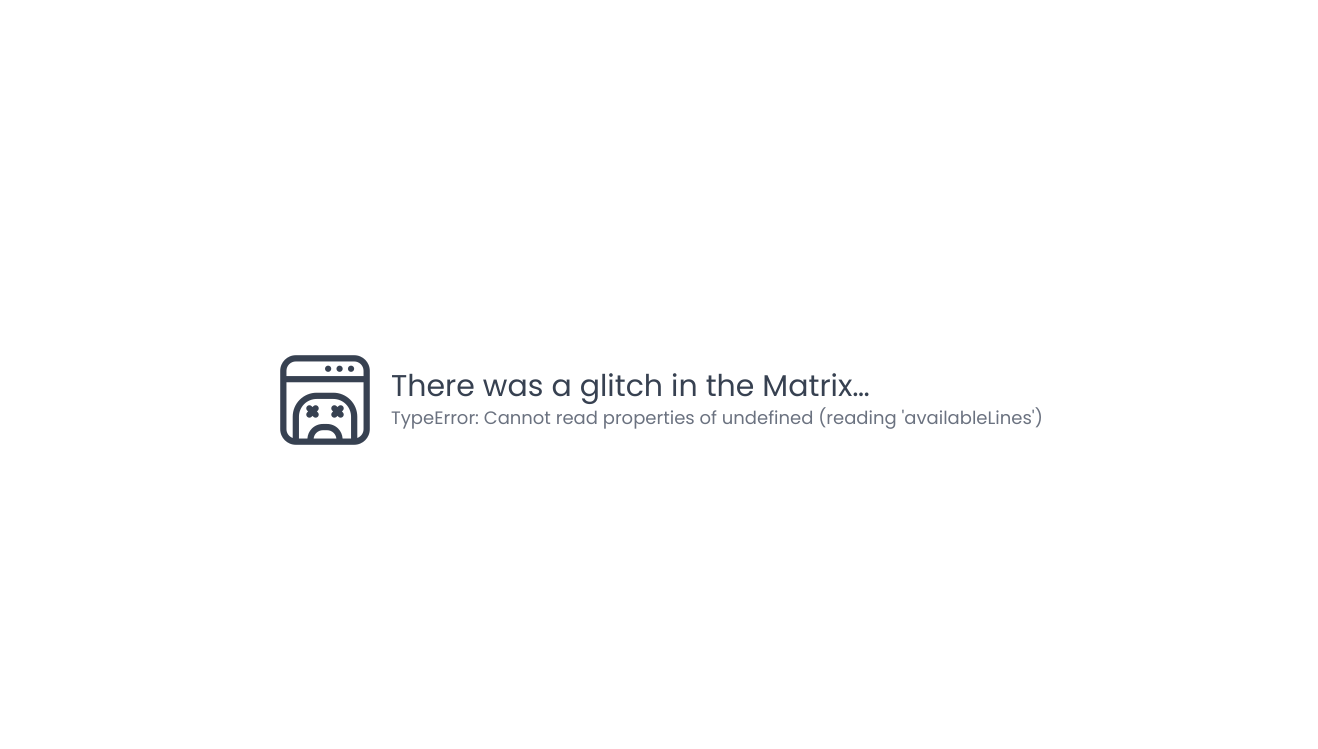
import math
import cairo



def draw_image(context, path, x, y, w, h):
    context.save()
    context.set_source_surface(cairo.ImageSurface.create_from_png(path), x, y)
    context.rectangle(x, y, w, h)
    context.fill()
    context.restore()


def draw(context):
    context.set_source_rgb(1, 1, 1)
    context.paint()
    draw_image(context, "images/1.png", 280, 355, 90, 90)
    context.select_font_face("Poppins")
    context.set_font_size(30)
    context.set_source_rgb(55 / 255, 65 / 255, 81 / 255)
    context.move_to(391, 396)
    context.show_text("There was a glitch in the Matrix…")
    context.set_font_size(18)
    context.set_source_rgb(107 / 255, 114 / 255, 128 / 255)
    context.move_to(391, 424)
    context.show_text("TypeError: Cannot read properties of undefined (reading 'availableLines')")


surface = cairo.ImageSurface(cairo.Format.RGB24, 1318, 749)
context = cairo.Context(surface)
options = cairo.FontOptions()
options.set_hint_metrics(cairo.HintMetrics.OFF)
options.set_hint_style(cairo.HintStyle.NONE)
context.set_font_options(options)
context.set_miter_limit(4)
draw(context)
surface.write_to_png("out.png")
